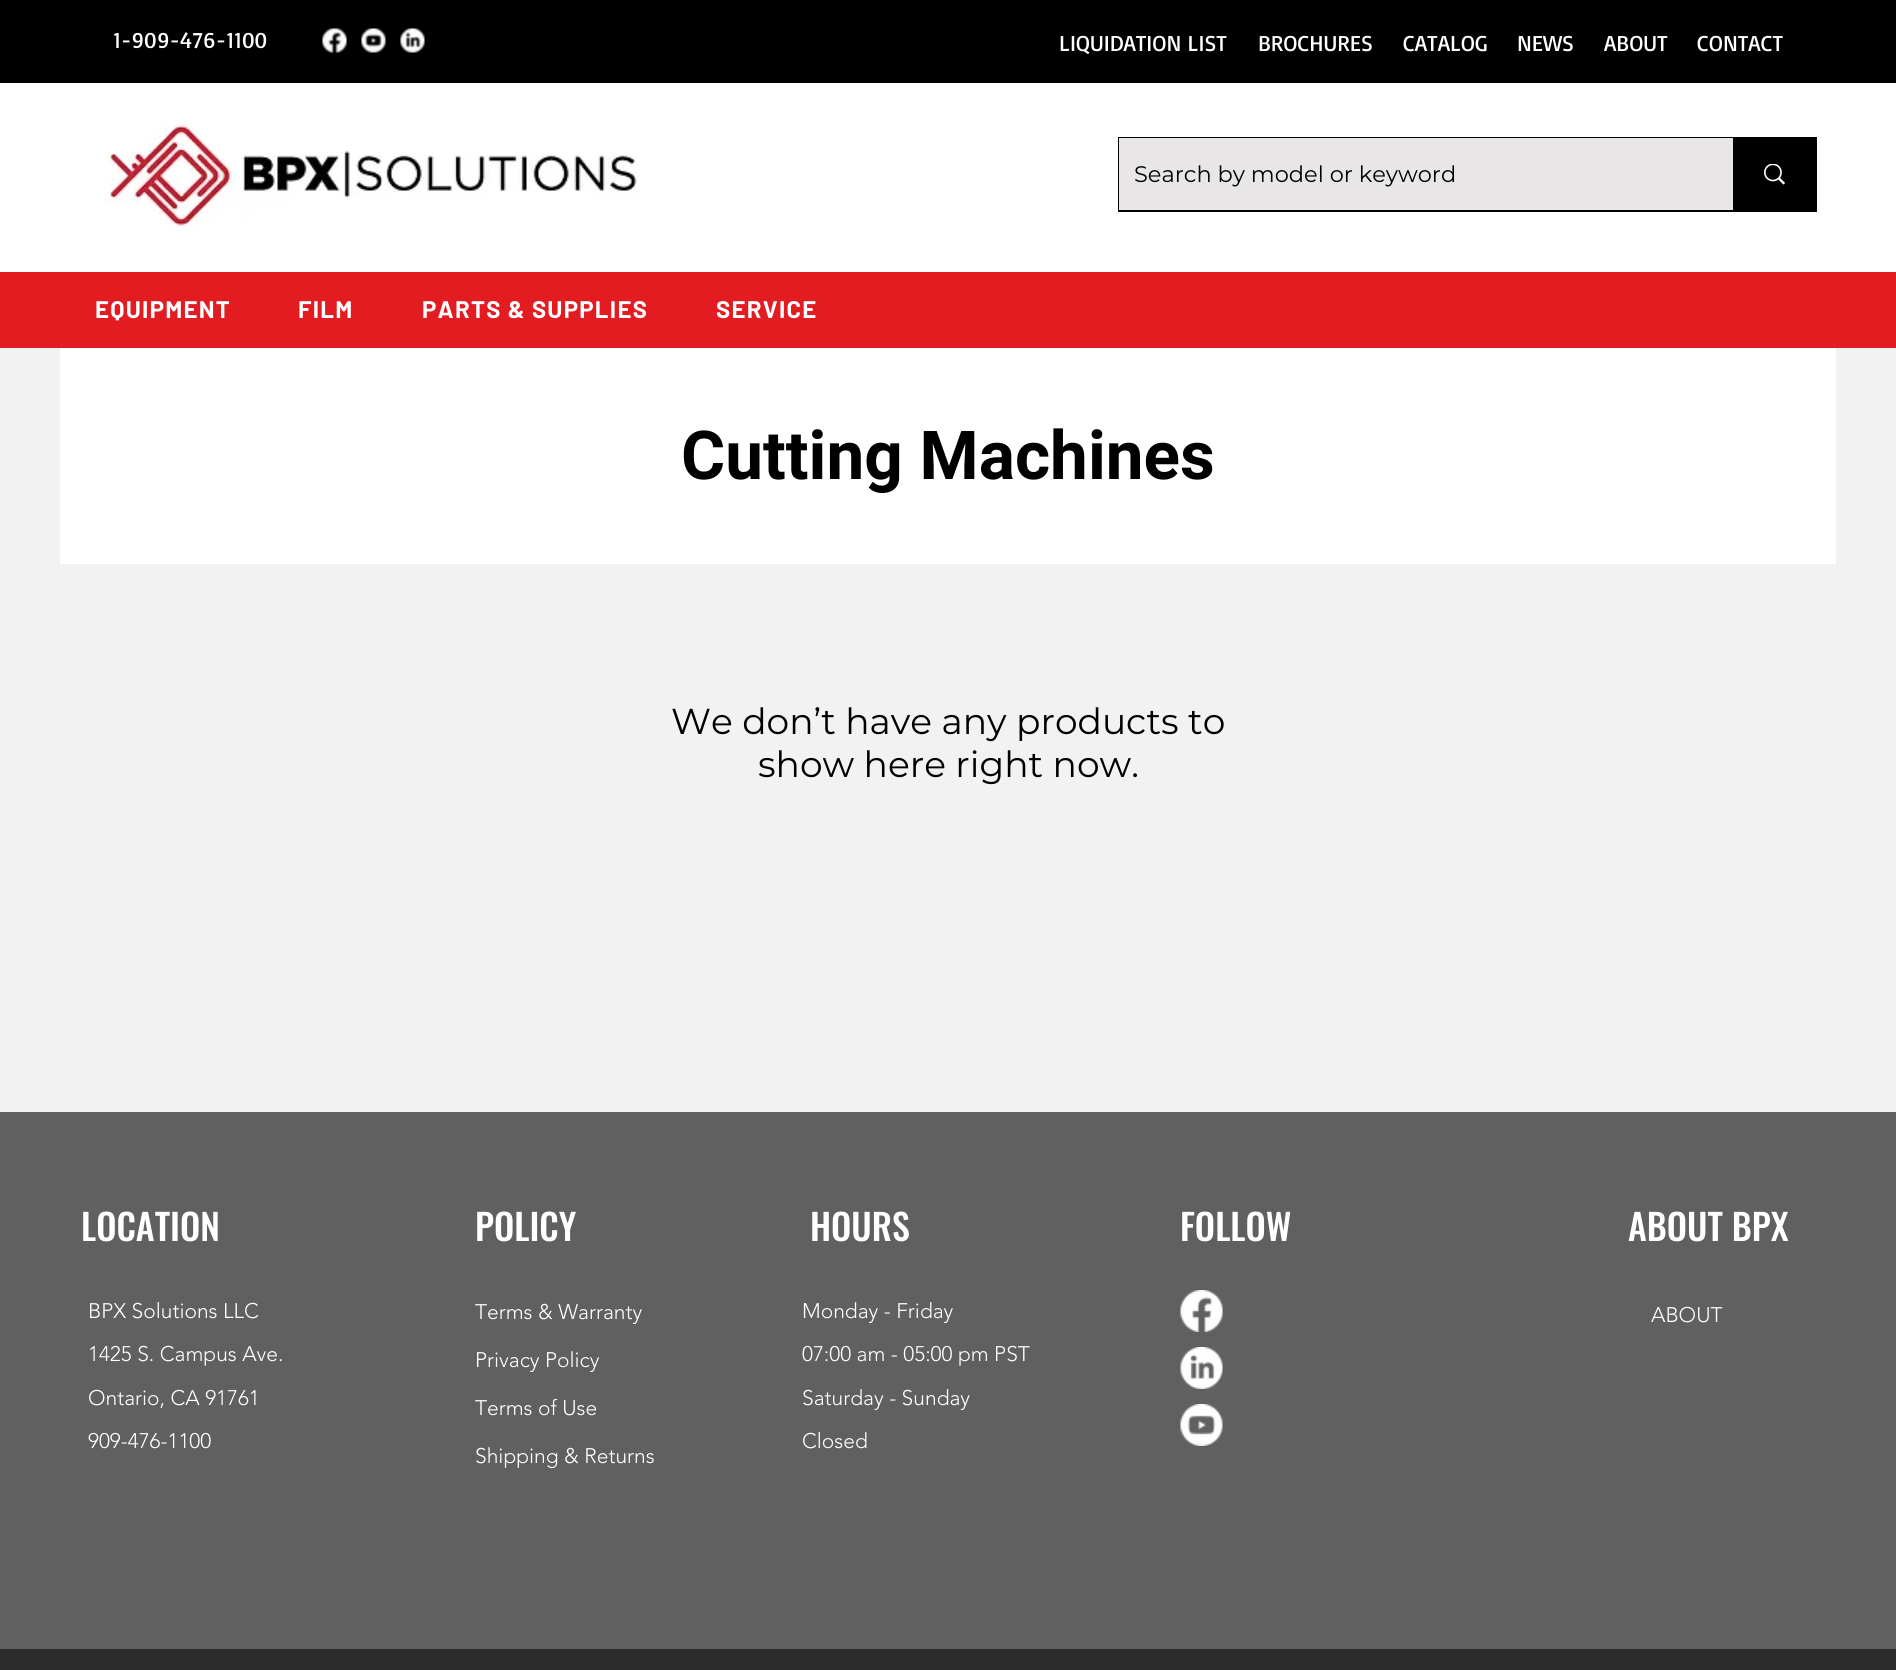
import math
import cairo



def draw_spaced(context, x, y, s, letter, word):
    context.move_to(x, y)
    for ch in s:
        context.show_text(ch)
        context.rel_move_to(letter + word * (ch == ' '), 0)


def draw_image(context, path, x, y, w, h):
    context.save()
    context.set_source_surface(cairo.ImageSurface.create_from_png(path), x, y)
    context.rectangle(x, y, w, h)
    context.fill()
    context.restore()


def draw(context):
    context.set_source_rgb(242 / 255, 242 / 255, 242 / 255)
    context.paint()
    context.set_source_rgb(0, 0, 0)
    context.rectangle(0, 0, 1896, 83)
    context.fill()
    draw_image(context, "images/1.png", 322, 28, 25, 25)
    draw_image(context, "images/2.png", 361, 28, 25, 25)
    draw_image(context, "images/3.png", 400, 28, 25, 25)
    context.set_source_rgb(1, 1, 1)
    context.rectangle(0, 83, 1896, 189)
    context.fill()
    draw_image(context, "images/4.png", 105, 119, 534, 108)
    context.rectangle(1119, 138, 697, 73)
    context.set_source_rgb(0, 0, 0)
    context.stroke()
    context.set_source_rgb(232 / 255, 230 / 255, 230 / 255)
    context.rectangle(1119, 138, 614, 72)
    context.fill()
    context.set_source_rgb(0, 0, 0)
    context.rectangle(1733, 139, 82, 71)
    context.fill()
    draw_image(context, "images/5.png", 1764, 164, 21, 21)
    context.set_source_rgb(226 / 255, 28 / 255, 33 / 255)
    context.rectangle(0, 272, 1896, 76)
    context.fill()
    context.set_source_rgb(1, 1, 1)
    context.rectangle(60, 348, 1776, 216)
    context.fill()
    context.set_source_rgb(97 / 255, 96 / 255, 96 / 255)
    context.rectangle(0, 1112, 1896, 537)
    context.fill()
    draw_image(context, "images/6.png", 1180, 1290, 43, 42)
    draw_image(context, "images/7.png", 1180, 1347, 43, 42)
    draw_image(context, "images/8.png", 1180, 1404, 43, 42)
    context.set_source_rgb(44 / 255, 44 / 255, 44 / 255)
    context.rectangle(0, 1649, 1896, 21)
    context.fill()
    context.select_font_face("Basic")
    context.set_font_size(22.5)
    context.set_source_rgb(1, 1, 1)
    context.move_to(113, 48)
    context.show_text("1-909-476-1100")
    context.move_to(1059, 51)
    context.show_text("LIQUIDATION LIST")
    context.move_to(1258, 51)
    context.show_text("BROCHURES")
    context.move_to(1403, 51)
    context.show_text("CATALOG")
    context.move_to(1517, 51)
    context.show_text("NEWS")
    context.move_to(1604, 51)
    context.show_text("ABOUT")
    context.move_to(1697, 51)
    context.show_text("CONTACT")
    context.select_font_face("Montserrat")
    context.set_source_rgb(0, 0, 0)
    context.move_to(1134, 182)
    context.show_text("Search by model or keyword")
    context.select_font_face("Barlow", cairo.FontSlant.NORMAL, cairo.FontWeight.BOLD)
    context.set_font_size(24)
    context.set_source_rgb(1, 1, 1)
    draw_spaced(context, 95, 318, "EQUIPMENT", 1.25, 0)
    draw_spaced(context, 298, 318, "FILM", 1.25, 0)
    draw_spaced(context, 422, 318, "PARTS & SUPPLIES", 1.25, 0)
    draw_spaced(context, 716, 318, "SERVICE", 1.25, 0)
    context.select_font_face("Roboto", cairo.FontSlant.NORMAL, cairo.FontWeight.BOLD)
    context.set_font_size(67.5)
    context.set_source_rgb(0, 0, 0)
    context.move_to(681, 479)
    context.show_text("Cutting Machines")
    context.select_font_face("Montserrat")
    context.set_font_size(36)
    context.move_to(671, 734)
    context.show_text("We don’t have any products to")
    context.move_to(758, 777)
    context.show_text("show here right now.")
    context.select_font_face("Oswald Medium")
    context.set_source_rgb(1, 1, 1)
    context.move_to(81, 1241)
    context.show_text("LOCATION")
    context.select_font_face("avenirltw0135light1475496 Light")
    context.set_font_size(21)
    context.move_to(88, 1318)
    context.show_text("BPX Solutions LLC")
    context.move_to(88, 1361)
    context.show_text("1425 S. Campus Ave.")
    context.move_to(88, 1405)
    context.show_text("Ontario, CA 91761")
    context.move_to(88, 1448)
    context.show_text("909-476-1100")
    context.select_font_face("Oswald Medium")
    context.set_font_size(36)
    context.move_to(475, 1241)
    context.show_text("POLICY")
    context.select_font_face("avenirltw0135light1475496 Light")
    context.set_font_size(21)
    context.move_to(475, 1319)
    context.show_text("Terms & Warranty")
    context.move_to(475, 1367)
    context.show_text("Privacy Policy")
    context.move_to(475, 1415)
    context.show_text("Terms of Use")
    context.move_to(475, 1463)
    context.show_text("Shipping & Returns")
    context.select_font_face("Oswald Medium")
    context.set_font_size(36)
    context.move_to(810, 1241)
    context.show_text("HOURS")
    context.select_font_face("avenirltw0135light1475496 Light")
    context.set_font_size(21)
    context.move_to(802, 1318)
    context.show_text("Monday - Friday")
    context.move_to(802, 1361)
    context.show_text("07:00 am - 05:00 pm PST")
    context.move_to(802, 1405)
    context.show_text("Saturday - Sunday")
    context.move_to(802, 1448)
    context.show_text("Closed")
    context.select_font_face("Oswald Medium")
    context.set_font_size(36)
    context.move_to(1180, 1241)
    context.show_text("FOLLOW")
    context.move_to(1628, 1241)
    context.show_text("ABOUT BPX")
    context.select_font_face("avenirltw0135light1475496 Light")
    context.set_font_size(21)
    context.move_to(1651, 1322)
    context.show_text("ABOUT")


surface = cairo.ImageSurface(cairo.Format.RGB24, 1896, 1670)
context = cairo.Context(surface)
options = cairo.FontOptions()
options.set_hint_metrics(cairo.HintMetrics.OFF)
options.set_hint_style(cairo.HintStyle.NONE)
context.set_font_options(options)
context.set_miter_limit(4)
draw(context)
surface.write_to_png("out.png")
